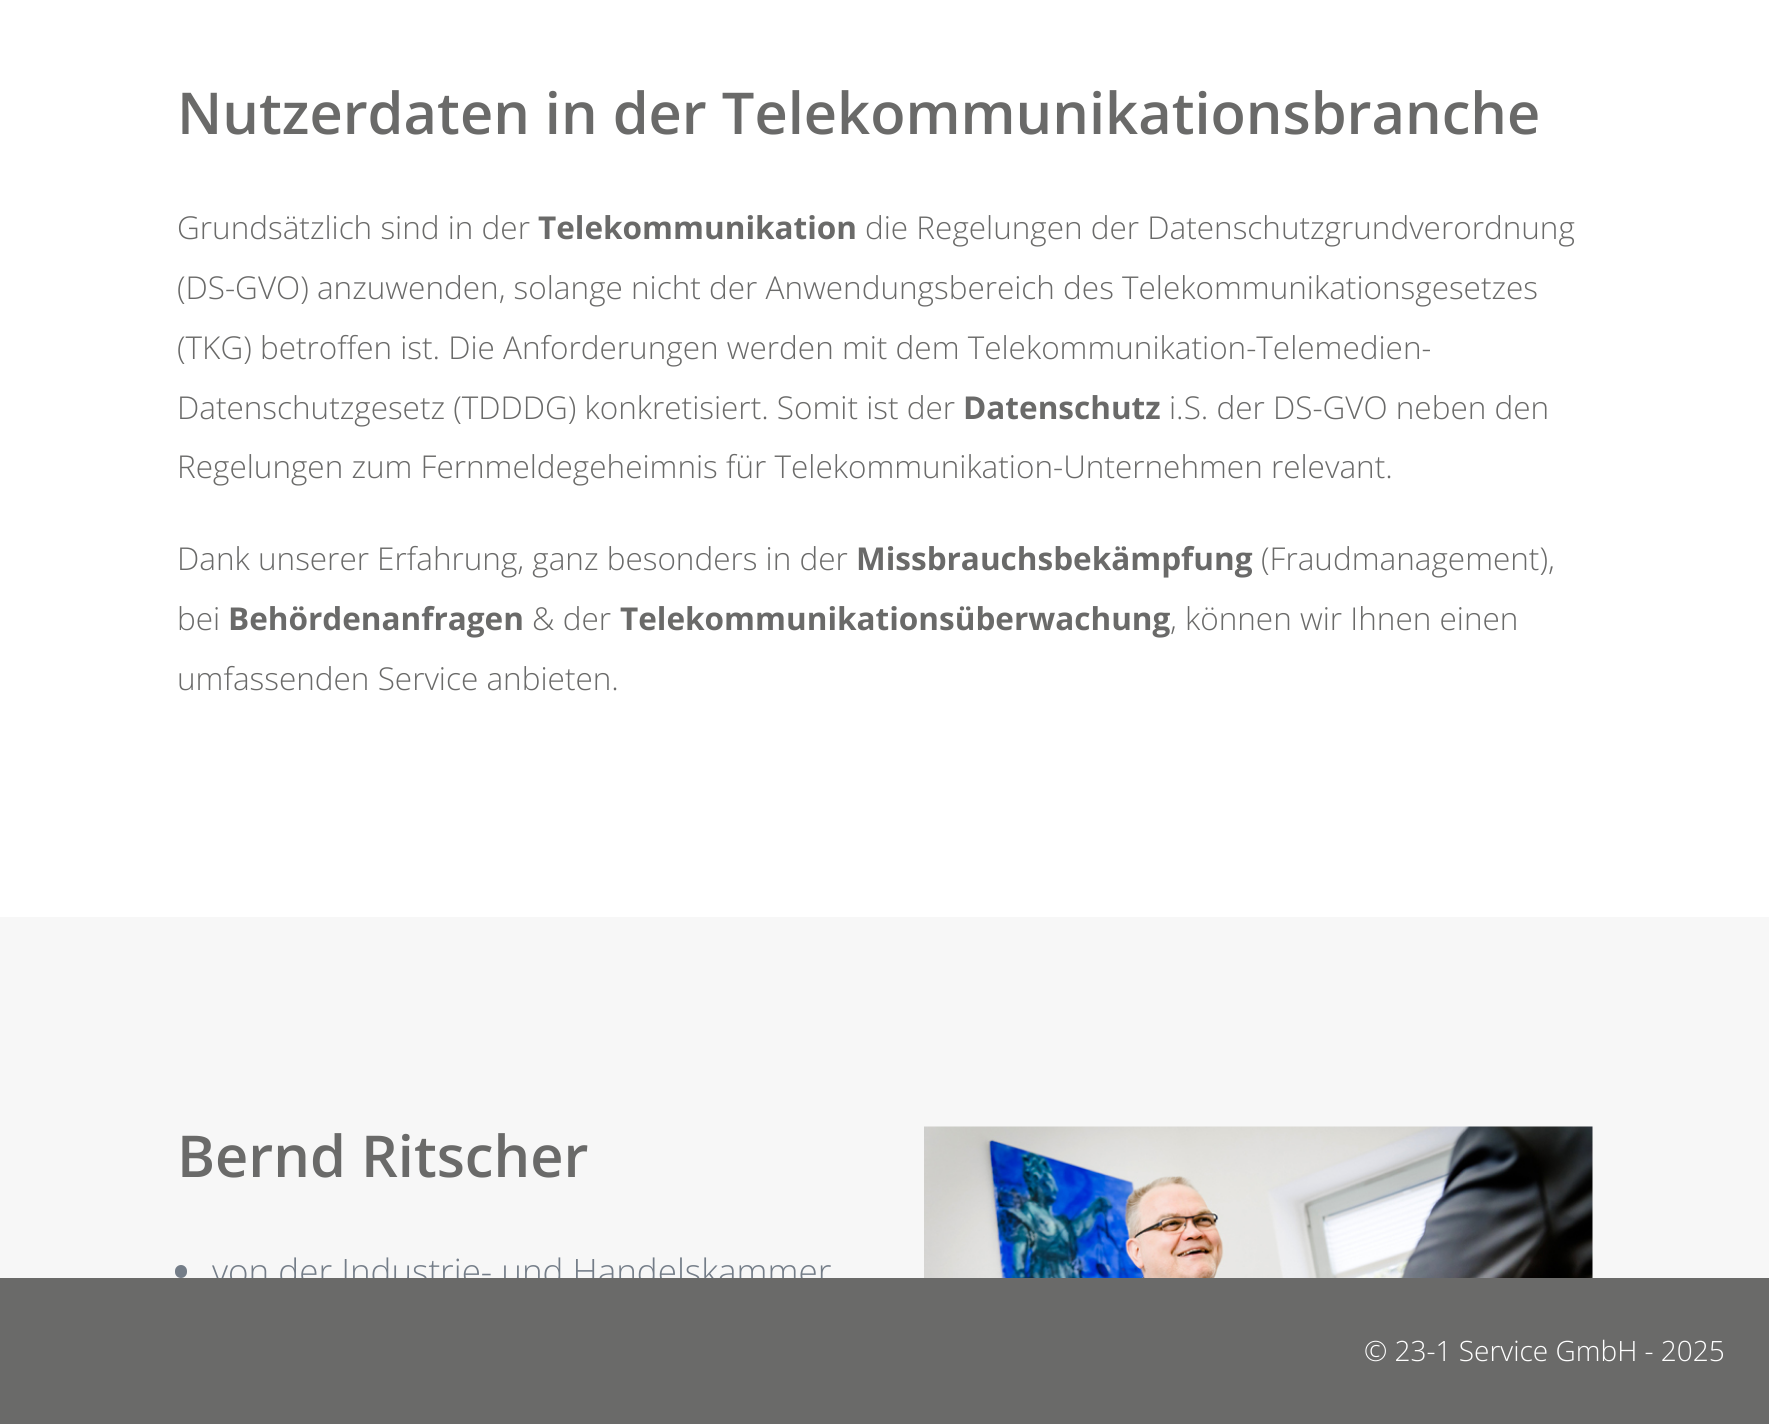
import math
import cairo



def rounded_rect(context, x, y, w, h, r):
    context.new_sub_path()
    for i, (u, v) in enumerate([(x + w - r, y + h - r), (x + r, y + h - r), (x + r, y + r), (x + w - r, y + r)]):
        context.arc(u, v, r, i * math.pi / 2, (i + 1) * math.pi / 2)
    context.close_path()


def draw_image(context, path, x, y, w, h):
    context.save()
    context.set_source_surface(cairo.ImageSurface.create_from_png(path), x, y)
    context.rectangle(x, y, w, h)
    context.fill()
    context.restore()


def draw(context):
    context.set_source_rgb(1, 1, 1)
    context.paint()
    context.set_source_rgb(247 / 255, 247 / 255, 247 / 255)
    context.rectangle(0, 917, 1769, 361)
    context.fill()
    context.set_source_rgb(116 / 255, 125 / 255, 136 / 255)
    rounded_rect(context, 175, 1265, 12, 13, 6)
    context.fill()
    draw_image(context, "images/1.png", 924, 1126, 669, 152)
    context.select_font_face("Open Sans SemiBold")
    context.set_font_size(57.75)
    context.set_source_rgb(106 / 255, 106 / 255, 105 / 255)
    context.move_to(177, 134)
    context.show_text("Nutzerdaten in der Telekommunikationsbranche")
    context.select_font_face("Open Sans Light")
    context.set_font_size(31.5)
    context.move_to(177, 239)
    context.show_text("Grundsätzlich sind in der")
    context.select_font_face("Open Sans", cairo.FontSlant.NORMAL, cairo.FontWeight.BOLD)
    context.move_to(538, 239)
    context.show_text("Telekommunikation")
    context.select_font_face("Open Sans Light")
    context.move_to(865, 239)
    context.show_text("die Regelungen der Datenschutzgrundverordnung")
    context.move_to(177, 299)
    context.show_text("(DS-GVO) anzuwenden, solange nicht der Anwendungsbereich des Telekommunikationsgesetzes")
    context.move_to(177, 359)
    context.show_text("(TKG) betroffen ist. Die Anforderungen werden mit dem Telekommunikation-Telemedien-")
    context.move_to(177, 419)
    context.show_text("Datenschutzgesetz (TDDDG) konkretisiert. Somit ist der")
    context.select_font_face("Open Sans", cairo.FontSlant.NORMAL, cairo.FontWeight.BOLD)
    context.move_to(963, 419)
    context.show_text("Datenschutz")
    context.select_font_face("Open Sans Light")
    context.move_to(1169, 419)
    context.show_text("i.S. der DS-GVO neben den")
    context.move_to(177, 478)
    context.show_text("Regelungen zum Fernmeldegeheimnis für Telekommunikation-Unternehmen relevant.")
    context.move_to(177, 570)
    context.show_text("Dank unserer Erfahrung, ganz besonders in der")
    context.select_font_face("Open Sans", cairo.FontSlant.NORMAL, cairo.FontWeight.BOLD)
    context.move_to(856, 570)
    context.show_text("Missbrauchsbekämpfung")
    context.select_font_face("Open Sans Light")
    context.move_to(1261, 570)
    context.show_text("(Fraudmanagement),")
    context.move_to(177, 630)
    context.show_text("bei")
    context.select_font_face("Open Sans", cairo.FontSlant.NORMAL, cairo.FontWeight.BOLD)
    context.move_to(228, 630)
    context.show_text("Behördenanfragen")
    context.select_font_face("Open Sans Light")
    context.move_to(532, 630)
    context.show_text("& der")
    context.select_font_face("Open Sans", cairo.FontSlant.NORMAL, cairo.FontWeight.BOLD)
    context.move_to(620, 630)
    context.show_text("Telekommunikationsüberwachung")
    context.select_font_face("Open Sans Light")
    context.move_to(1170, 630)
    context.show_text(", können wir Ihnen einen")
    context.move_to(177, 690)
    context.show_text("umfassenden Service anbieten.")
    context.select_font_face("Open Sans SemiBold")
    context.set_font_size(57.75)
    context.move_to(177, 1177)
    context.show_text("Bernd Ritscher")
    context.select_font_face("Open Sans Light")
    context.set_font_size(35)
    context.set_source_rgb(116 / 255, 125 / 255, 136 / 255)
    context.move_to(212, 1284)
    context.show_text("von der Industrie- und Handelskammer")
    context.set_source_rgb(106 / 255, 106 / 255, 105 / 255)
    context.rectangle(0, 1278, 1769, 146)
    context.fill()
    context.set_font_size(28)
    context.set_source_rgb(1, 1, 1)
    context.move_to(1364, 1361)
    context.show_text("© 23-1 Service GmbH - 2025")


surface = cairo.ImageSurface(cairo.Format.RGB24, 1769, 1424)
context = cairo.Context(surface)
options = cairo.FontOptions()
options.set_hint_metrics(cairo.HintMetrics.OFF)
options.set_hint_style(cairo.HintStyle.NONE)
context.set_font_options(options)
context.set_miter_limit(4)
draw(context)
surface.write_to_png("out.png")
